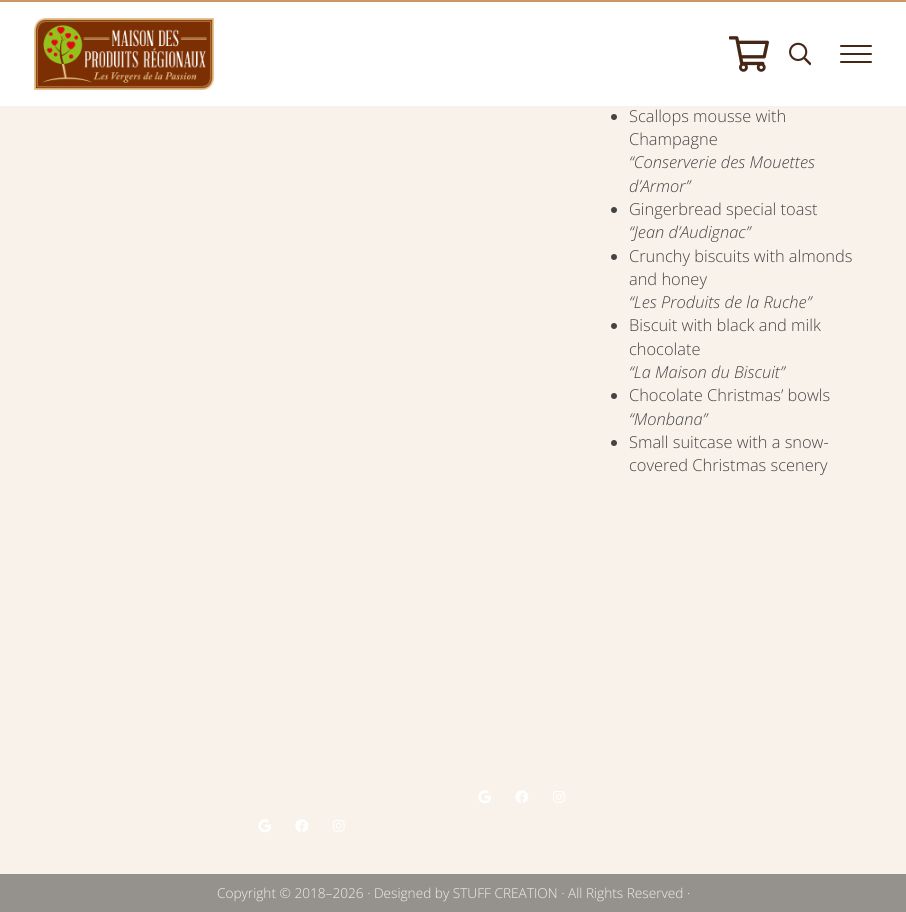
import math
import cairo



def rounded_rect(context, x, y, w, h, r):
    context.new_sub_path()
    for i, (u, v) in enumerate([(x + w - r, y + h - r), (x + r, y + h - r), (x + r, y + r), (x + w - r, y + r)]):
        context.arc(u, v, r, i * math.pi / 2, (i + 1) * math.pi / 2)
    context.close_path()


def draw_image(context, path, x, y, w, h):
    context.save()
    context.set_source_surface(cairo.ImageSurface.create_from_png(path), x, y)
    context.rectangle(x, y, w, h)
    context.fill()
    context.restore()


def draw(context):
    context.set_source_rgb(249 / 255, 242 / 255, 234 / 255)
    context.paint()
    context.set_source_rgb(1, 1, 1)
    context.rectangle(0, 2, 906, 104)
    context.fill()
    context.set_source_rgb(200 / 255, 152 / 255, 101 / 255)
    context.rectangle(0, 0, 906, 2)
    context.fill()
    context.set_source_rgb(243 / 255, 243 / 255, 244 / 255)
    context.rectangle(0, 106, 906, 1)
    context.fill()
    draw_image(context, "images/1.png", 34, 18, 180, 72)
    draw_image(context, "images/2.png", 729, 36, 40, 36)
    draw_image(context, "images/3.png", 789, 42, 22, 24)
    context.set_source_rgb(70 / 255, 39 / 255, 22 / 255)
    rounded_rect(context, 840, 53, 32, 2, 1)
    context.fill()
    rounded_rect(context, 840, 45, 32, 2, 1)
    context.fill()
    rounded_rect(context, 840, 61, 32, 2, 1)
    context.fill()
    context.set_source_rgb(68 / 255, 68 / 255, 68 / 255)
    context.arc(614, 117, 3, 0, 2 * math.pi)
    context.fill()
    context.arc(614, 210, 3, 0, 2 * math.pi)
    context.fill()
    context.arc(614, 257, 3, 0, 2 * math.pi)
    context.fill()
    context.arc(614, 326, 3, 0, 2 * math.pi)
    context.fill()
    context.arc(614, 396, 3, 0, 2 * math.pi)
    context.fill()
    context.arc(614, 443, 3, 0, 2 * math.pi)
    context.fill()
    draw_image(context, "images/4.png", 478, 790, 13, 14)
    draw_image(context, "images/5.png", 515, 790, 14, 13)
    draw_image(context, "images/6.png", 553, 791, 12, 12)
    draw_image(context, "images/7.png", 258, 819, 13, 14)
    draw_image(context, "images/5.png", 295, 819, 14, 13)
    draw_image(context, "images/6.png", 333, 820, 12, 12)
    context.set_source_rgb(149 / 255, 145 / 255, 140 / 255)
    context.rectangle(0, 874, 906, 38)
    context.fill()
    context.select_font_face("Open Sans Light")
    context.set_font_size(16.4)
    context.set_source_rgb(68 / 255, 68 / 255, 68 / 255)
    context.move_to(629, 122)
    context.show_text("Scallops mousse with")
    context.move_to(629, 145)
    context.show_text("Champagne")
    context.select_font_face("Open Sans Light", cairo.FontSlant.ITALIC)
    context.move_to(629, 168)
    context.show_text("“Conserverie des Mouettes")
    context.move_to(629, 192)
    context.show_text("d’Armor”")
    context.select_font_face("Open Sans Light")
    context.move_to(629, 215)
    context.show_text("Gingerbread special toast")
    context.select_font_face("Open Sans Light", cairo.FontSlant.ITALIC)
    context.move_to(629, 238)
    context.show_text("“Jean d’Audignac”")
    context.select_font_face("Open Sans Light")
    context.move_to(629, 262)
    context.show_text("Crunchy biscuits with almonds")
    context.move_to(629, 285)
    context.show_text("and honey")
    context.select_font_face("Open Sans Light", cairo.FontSlant.ITALIC)
    context.move_to(629, 308)
    context.show_text("“Les Produits de la Ruche”")
    context.select_font_face("Open Sans Light")
    context.move_to(629, 331)
    context.show_text("Biscuit with black and milk")
    context.move_to(629, 355)
    context.show_text("chocolate")
    context.select_font_face("Open Sans Light", cairo.FontSlant.ITALIC)
    context.move_to(629, 378)
    context.show_text("“La Maison du Biscuit”")
    context.select_font_face("Open Sans Light")
    context.move_to(629, 401)
    context.show_text("Chocolate Christmas’ bowls")
    context.select_font_face("Open Sans Light", cairo.FontSlant.ITALIC)
    context.move_to(629, 425)
    context.show_text("“Monbana”")
    context.select_font_face("Open Sans Light")
    context.move_to(629, 448)
    context.show_text("Small suitcase with a snow-")
    context.move_to(629, 471)
    context.show_text("covered Christmas scenery")
    context.set_font_size(13.65)
    context.set_source_rgb(240 / 255, 240 / 255, 240 / 255)
    context.move_to(217, 898)
    context.show_text("Copyright © 2018–2026 · Designed by STUFF CREATION · All Rights Reserved ·")


surface = cairo.ImageSurface(cairo.Format.RGB24, 906, 912)
context = cairo.Context(surface)
options = cairo.FontOptions()
options.set_hint_metrics(cairo.HintMetrics.OFF)
options.set_hint_style(cairo.HintStyle.NONE)
context.set_font_options(options)
context.set_miter_limit(4)
draw(context)
surface.write_to_png("out.png")
